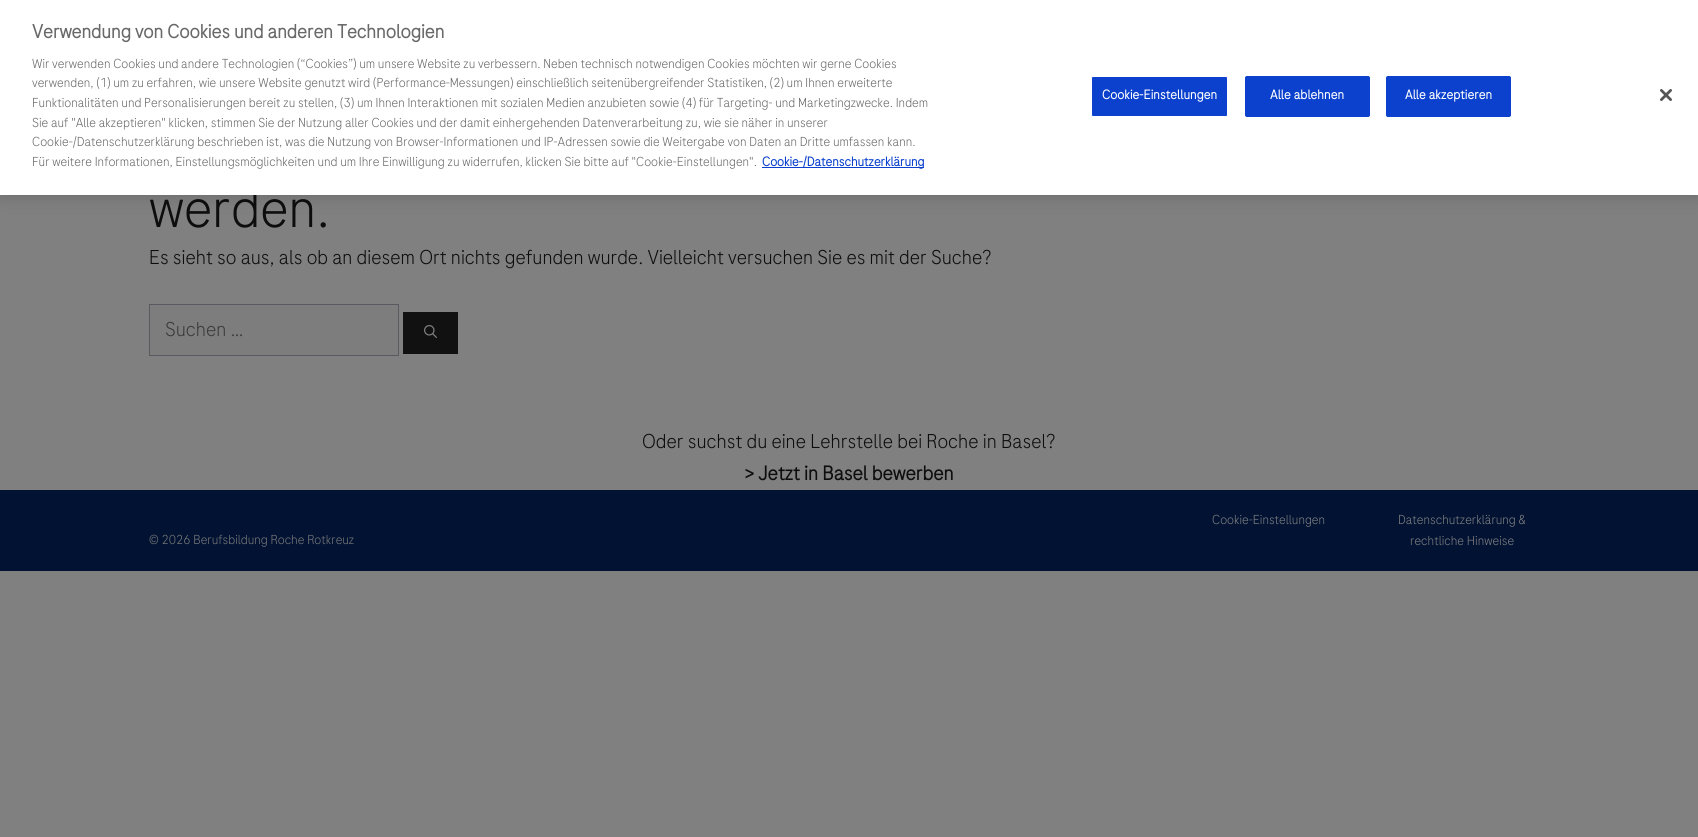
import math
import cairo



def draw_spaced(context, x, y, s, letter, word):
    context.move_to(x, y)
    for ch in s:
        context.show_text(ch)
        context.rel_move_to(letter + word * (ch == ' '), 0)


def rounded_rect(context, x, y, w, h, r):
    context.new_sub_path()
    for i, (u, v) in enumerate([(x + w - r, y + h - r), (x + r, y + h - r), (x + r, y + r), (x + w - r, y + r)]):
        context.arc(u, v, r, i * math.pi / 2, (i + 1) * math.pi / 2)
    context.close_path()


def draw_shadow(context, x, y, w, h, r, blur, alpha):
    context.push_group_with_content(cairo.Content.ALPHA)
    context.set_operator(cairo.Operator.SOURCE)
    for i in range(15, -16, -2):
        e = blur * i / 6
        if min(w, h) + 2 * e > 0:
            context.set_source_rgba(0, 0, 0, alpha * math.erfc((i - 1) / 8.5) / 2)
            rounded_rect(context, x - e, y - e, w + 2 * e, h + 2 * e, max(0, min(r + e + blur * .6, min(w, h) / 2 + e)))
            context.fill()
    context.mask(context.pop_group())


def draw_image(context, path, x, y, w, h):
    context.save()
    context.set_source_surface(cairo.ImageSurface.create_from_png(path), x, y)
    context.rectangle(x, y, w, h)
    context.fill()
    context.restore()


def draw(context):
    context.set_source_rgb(128 / 255, 128 / 255, 128 / 255)
    context.paint()
    context.set_source_rgb(0, 0, 0)
    draw_shadow(context, 0, 0, 1698, 195, 0, 9, 0.2)
    context.set_source_rgb(125 / 255, 125 / 255, 125 / 255)
    context.rectangle(149.5, 304.5, 249, 51)
    context.fill_preserve()
    context.set_source_rgb(89 / 255, 89 / 255, 95 / 255)
    context.set_line_width(1)
    context.stroke()
    context.set_source_rgb(17 / 255, 17 / 255, 17 / 255)
    context.rectangle(403, 312, 55, 42)
    context.fill()
    draw_image(context, "images/2.png", 424, 325, 13, 13)
    context.set_source_rgb(1 / 255, 18 / 255, 51 / 255)
    context.rectangle(0, 490, 1698, 81)
    context.fill()
    context.select_font_face("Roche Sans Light")
    context.set_font_size(55)
    context.set_source_rgb(13 / 255, 13 / 255, 13 / 255)
    context.move_to(149, 227)
    context.show_text("werden.")
    context.set_source_rgb(1, 1, 1)
    context.rectangle(0, 0, 1698, 195)
    context.fill()
    draw_image(context, "images/1.png", 1660, 89, 12, 12)
    context.set_source_rgb(11 / 255, 65 / 255, 205 / 255)
    rounded_rect(context, 1386.5, 76.5, 124, 40, 1.5)
    context.fill_preserve()
    context.stroke()
    context.select_font_face("Roche Sans", cairo.FontSlant.NORMAL, cairo.FontWeight.BOLD)
    context.set_font_size(13)
    context.set_source_rgb(1, 1, 1)
    draw_spaced(context, 1405, 99, "Alle akzeptieren", 0.1, 0)
    context.set_source_rgb(11 / 255, 65 / 255, 205 / 255)
    rounded_rect(context, 1245.5, 76.5, 124, 40, 1.5)
    context.fill_preserve()
    context.stroke()
    context.set_source_rgb(1, 1, 1)
    draw_spaced(context, 1270, 99, "Alle ablehnen", 0.1, 0)
    context.set_source_rgb(11 / 255, 65 / 255, 205 / 255)
    rounded_rect(context, 1091.5, 76.5, 136, 40, 1.5)
    context.fill_preserve()
    context.set_source_rgb(1, 1, 1)
    context.stroke()
    draw_spaced(context, 1102, 99, "Cookie-Einstellungen", 0.1, 0)
    context.set_source_rgb(11 / 255, 65 / 255, 205 / 255)
    context.rectangle(762, 167, 162, 1)
    context.fill()
    context.move_to(762, 166)
    context.show_text("Cookie-/Datenschutzerklärung")
    context.select_font_face("Roche Sans Light")
    context.set_source_rgb(105 / 255, 105 / 255, 105 / 255)
    context.move_to(32, 166)
    context.show_text("Für weitere Informationen, Einstellungsmöglichkeiten und um Ihre Einwilligung zu widerrufen, klicken Sie bitte auf \"Cookie-Einstellungen\".")
    context.move_to(32, 146)
    context.show_text("Cookie-/Datenschutzerklärung beschrieben ist, was die Nutzung von Browser-Informationen und IP-Adressen sowie die Weitergabe von Daten an Dritte umfassen kann.")
    context.move_to(32, 127)
    context.show_text("Sie auf \"Alle akzeptieren\" klicken, stimmen Sie der Nutzung aller Cookies und der damit einhergehenden Datenverarbeitung zu, wie sie näher in unserer")
    context.move_to(32, 107)
    context.show_text("Funktionalitäten und Personalisierungen bereit zu stellen, (3) um Ihnen Interaktionen mit sozialen Medien anzubieten sowie (4) für Targeting- und Marketingzwecke. Indem")
    context.move_to(32, 87)
    context.show_text("verwenden, (1) um zu erfahren, wie unsere Website genutzt wird (Performance-Messungen) einschließlich seitenübergreifender Statistiken, (2) um Ihnen erweiterte")
    context.move_to(32, 68)
    context.show_text("Wir verwenden Cookies und andere Technologien (“Cookies”) um unsere Website zu verbessern. Neben technisch notwendigen Cookies möchten wir gerne Cookies")
    context.select_font_face("Roche Sans", cairo.FontSlant.NORMAL, cairo.FontWeight.BOLD)
    context.set_font_size(19.2)
    context.move_to(32, 38)
    context.show_text("Verwendung von Cookies und anderen Technologien")
    context.select_font_face("Roche Sans Light")
    context.set_font_size(20)
    context.set_source_rgb(13 / 255, 13 / 255, 13 / 255)
    context.move_to(149, 264)
    context.show_text("Es sieht so aus, als ob an diesem Ort nichts gefunden wurde. Vielleicht versuchen Sie es mit der Suche?")
    context.set_source_rgb(59 / 255, 59 / 255, 59 / 255)
    context.move_to(165, 336)
    context.show_text("Suchen …")
    context.set_source_rgb(13 / 255, 13 / 255, 13 / 255)
    context.move_to(642, 448)
    context.show_text("Oder suchst du eine Lehrstelle bei Roche in Basel?")
    context.select_font_face("Roche Sans", cairo.FontSlant.NORMAL, cairo.FontWeight.BOLD)
    context.move_to(745, 480)
    context.show_text("> Jetzt in Basel bewerben")
    context.select_font_face("Roche Sans Light")
    context.set_font_size(13)
    context.set_source_rgb(120 / 255, 120 / 255, 120 / 255)
    context.move_to(149, 544)
    context.show_text("© 2026 Berufsbildung Roche Rotkreuz")
    context.set_source_rgb(128 / 255, 128 / 255, 128 / 255)
    context.move_to(1212, 524)
    context.show_text("Cookie-Einstellungen")
    context.move_to(1398, 524)
    context.show_text("Datenschutzerklärung &")
    context.move_to(1410, 545)
    context.show_text("rechtliche Hinweise")


surface = cairo.ImageSurface(cairo.Format.RGB24, 1698, 837)
context = cairo.Context(surface)
options = cairo.FontOptions()
options.set_hint_metrics(cairo.HintMetrics.OFF)
options.set_hint_style(cairo.HintStyle.NONE)
context.set_font_options(options)
context.set_miter_limit(4)
draw(context)
surface.write_to_png("out.png")
